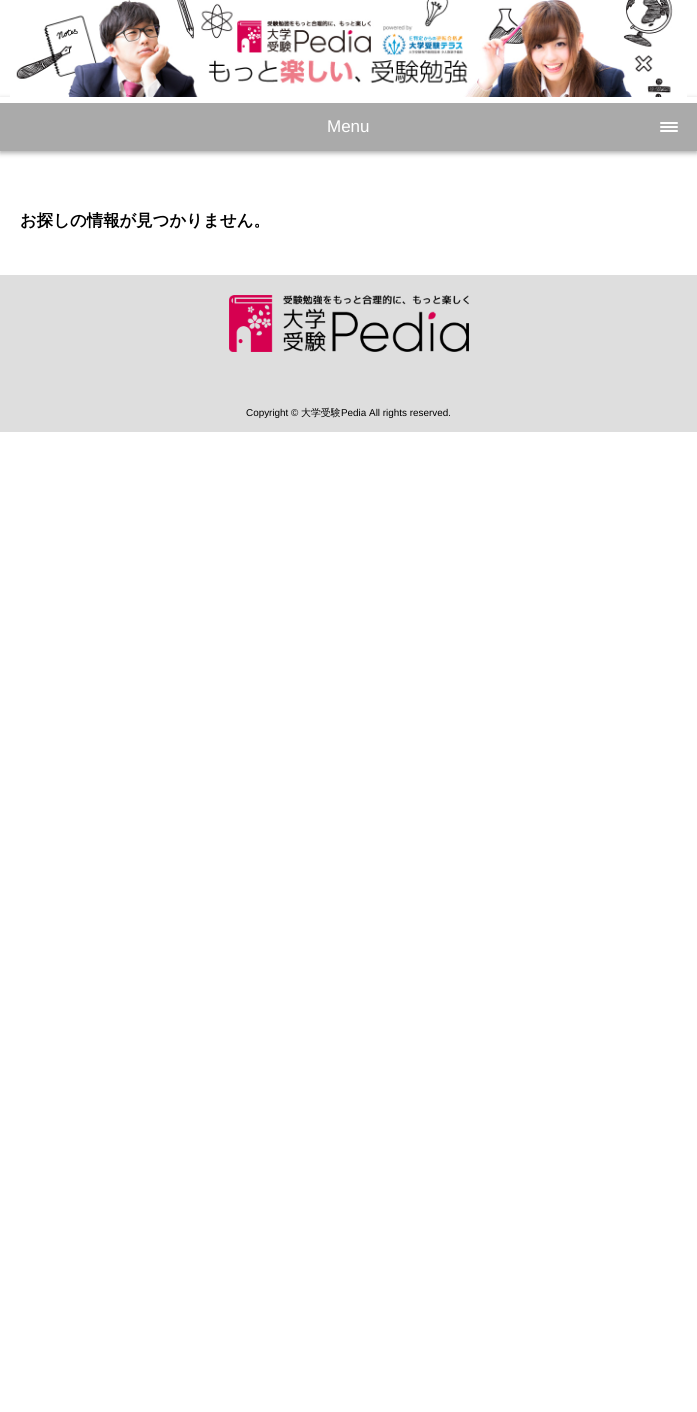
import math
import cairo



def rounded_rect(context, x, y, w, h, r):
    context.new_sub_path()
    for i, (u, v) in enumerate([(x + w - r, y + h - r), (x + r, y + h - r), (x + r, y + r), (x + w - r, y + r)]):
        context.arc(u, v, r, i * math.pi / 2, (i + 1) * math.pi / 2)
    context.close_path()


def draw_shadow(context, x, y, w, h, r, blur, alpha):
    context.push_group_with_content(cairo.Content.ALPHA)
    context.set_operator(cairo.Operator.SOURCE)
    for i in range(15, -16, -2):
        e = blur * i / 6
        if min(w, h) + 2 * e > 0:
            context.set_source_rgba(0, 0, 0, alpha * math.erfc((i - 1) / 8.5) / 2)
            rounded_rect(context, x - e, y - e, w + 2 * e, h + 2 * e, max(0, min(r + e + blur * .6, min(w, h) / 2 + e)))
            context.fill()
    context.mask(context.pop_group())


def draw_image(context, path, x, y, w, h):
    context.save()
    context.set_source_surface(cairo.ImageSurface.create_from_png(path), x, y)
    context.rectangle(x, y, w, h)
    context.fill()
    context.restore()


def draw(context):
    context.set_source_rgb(1, 1, 1)
    context.paint()
    context.save()
    context.set_fill_rule(cairo.FillRule.EVEN_ODD)
    context.new_path()
    context.move_to(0, 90)
    context.line_to(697, 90)
    context.line_to(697, 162)
    context.line_to(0, 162)
    context.close_path()
    context.move_to(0, 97)
    context.line_to(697, 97)
    context.line_to(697, 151)
    context.line_to(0, 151)
    context.close_path()
    context.clip()
    context.set_source_rgb(170 / 255, 170 / 255, 170 / 255)
    draw_shadow(context, 0, 99, 697, 54, 0, 2.5, 1)
    context.restore()
    draw_image(context, "images/1.png", 10, 0, 677, 97)
    context.set_source_rgb(170 / 255, 170 / 255, 170 / 255)
    context.rectangle(0, 103, 697, 48)
    context.fill()
    context.set_source_rgb(1, 1, 1)
    rounded_rect(context, 660, 122, 18, 2, 1)
    context.fill()
    rounded_rect(context, 660, 126, 18, 2, 1)
    context.fill()
    rounded_rect(context, 660, 130, 18, 2, 1)
    context.fill()
    context.set_source_rgb(222 / 255, 222 / 255, 222 / 255)
    context.rectangle(0, 275, 697, 157)
    context.fill()
    draw_image(context, "images/2.png", 229, 295, 240, 57)
    context.select_font_face("Liberation Sans")
    context.set_font_size(17)
    context.set_source_rgb(1, 1, 1)
    context.move_to(327, 132)
    context.show_text("Menu")
    context.select_font_face("WenQuanYi Zen Hei", cairo.FontSlant.NORMAL, cairo.FontWeight.BOLD)
    context.set_font_size(16.4)
    context.set_source_rgb(0, 0, 0)
    context.move_to(20, 226)
    context.show_text("お探しの情報が見つかりません。")
    context.select_font_face("Liberation Sans")
    context.set_font_size(9.9)
    context.move_to(246, 416)
    context.show_text("Copyright ©")
    context.select_font_face("WenQuanYi Zen Hei Medium")
    context.move_to(301, 416)
    context.show_text("大学受験")
    context.select_font_face("Liberation Sans")
    context.move_to(341, 416)
    context.show_text("Pedia All rights reserved.")


surface = cairo.ImageSurface(cairo.Format.RGB24, 697, 1412)
context = cairo.Context(surface)
options = cairo.FontOptions()
options.set_hint_metrics(cairo.HintMetrics.OFF)
options.set_hint_style(cairo.HintStyle.NONE)
context.set_font_options(options)
context.set_miter_limit(4)
draw(context)
surface.write_to_png("out.png")
